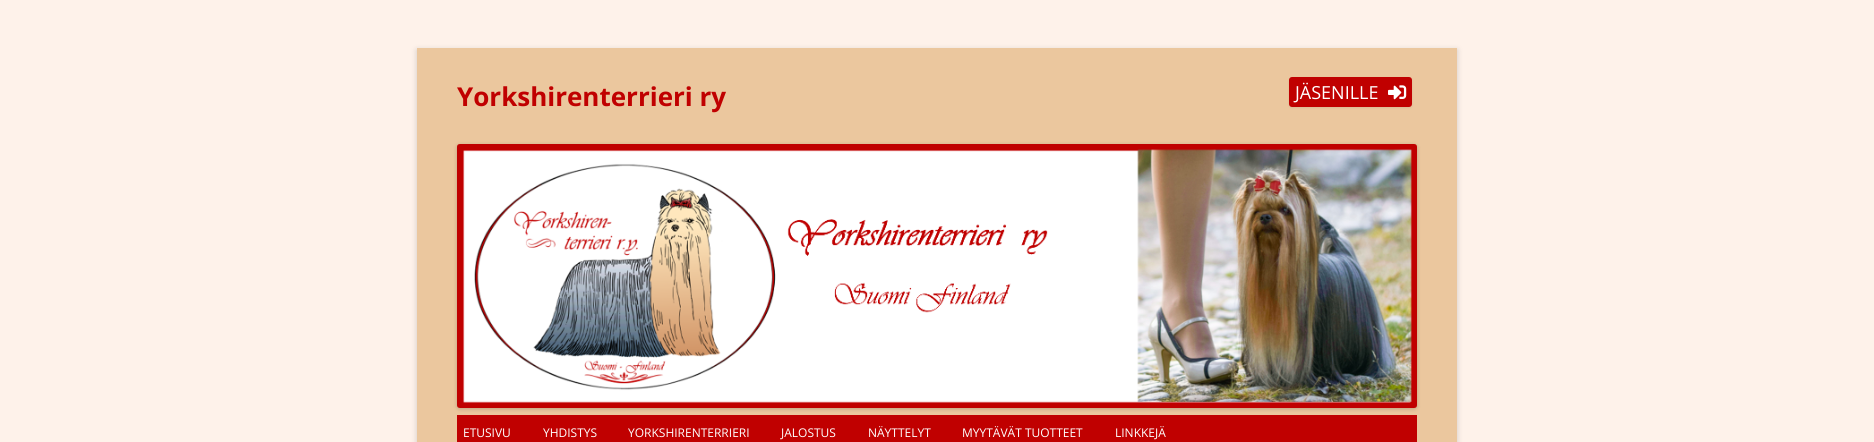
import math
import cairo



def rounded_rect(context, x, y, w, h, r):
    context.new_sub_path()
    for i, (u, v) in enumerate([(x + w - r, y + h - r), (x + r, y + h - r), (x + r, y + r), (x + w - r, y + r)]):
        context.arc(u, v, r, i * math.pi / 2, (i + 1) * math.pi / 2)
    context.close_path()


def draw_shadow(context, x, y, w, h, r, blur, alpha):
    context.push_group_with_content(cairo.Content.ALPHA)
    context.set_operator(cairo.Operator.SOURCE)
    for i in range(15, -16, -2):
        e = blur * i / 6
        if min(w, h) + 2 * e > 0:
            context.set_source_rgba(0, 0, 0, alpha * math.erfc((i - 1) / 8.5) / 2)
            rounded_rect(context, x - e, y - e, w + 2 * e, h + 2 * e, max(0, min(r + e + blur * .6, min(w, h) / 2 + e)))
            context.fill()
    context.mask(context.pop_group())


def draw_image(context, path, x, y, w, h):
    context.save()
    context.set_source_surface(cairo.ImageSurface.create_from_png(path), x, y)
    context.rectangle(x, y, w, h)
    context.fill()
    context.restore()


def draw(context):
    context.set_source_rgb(254 / 255, 242 / 255, 234 / 255)
    context.paint()
    context.set_source_rgb(100 / 255, 100 / 255, 100 / 255)
    draw_shadow(context, 417, 50, 1040, 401, 0, 3, 0.3)
    context.set_source_rgb(235 / 255, 199 / 255, 158 / 255)
    context.rectangle(417, 48, 1040, 394)
    context.fill()
    context.set_source_rgb(64 / 255, 64 / 255, 64 / 255)
    draw_shadow(context, 1289, 78, 123, 30, 3, 1, 0.1)
    context.set_source_rgb(192 / 255, 0, 0)
    rounded_rect(context, 1290.5, 78.5, 120, 27, 1.5)
    context.fill_preserve()
    context.set_line_width(3)
    context.stroke()
    draw_image(context, "images/1.png", 1388, 85, 19, 15)
    context.rectangle(457, 415, 960, 27)
    context.fill()
    context.set_source_rgb(0, 0, 0)
    draw_shadow(context, 457, 145, 960, 264, 3, 2, 0.2)
    draw_image(context, "images/2.png", 457, 144, 960, 264)
    context.select_font_face("Open Sans", cairo.FontSlant.NORMAL, cairo.FontWeight.BOLD)
    context.set_font_size(26)
    context.set_source_rgb(192 / 255, 0, 0)
    context.move_to(457, 106)
    context.show_text("Yorkshirenterrieri ry")
    context.select_font_face("Open Sans")
    context.set_font_size(18)
    context.set_source_rgb(1, 1, 1)
    context.move_to(1295, 99)
    context.show_text("JÄSENILLE")
    context.set_font_size(12)
    context.move_to(463, 437)
    context.show_text("ETUSIVU")
    context.move_to(543, 437)
    context.show_text("YHDISTYS")
    context.move_to(628, 437)
    context.show_text("YORKSHIRENTERRIERI")
    context.move_to(781, 437)
    context.show_text("JALOSTUS")
    context.move_to(868, 437)
    context.show_text("NÄYTTELYT")
    context.move_to(962, 437)
    context.show_text("MYYTÄVÄT TUOTTEET")
    context.move_to(1115, 437)
    context.show_text("LINKKEJÄ")


surface = cairo.ImageSurface(cairo.Format.RGB24, 1874, 442)
context = cairo.Context(surface)
options = cairo.FontOptions()
options.set_hint_metrics(cairo.HintMetrics.OFF)
options.set_hint_style(cairo.HintStyle.NONE)
context.set_font_options(options)
context.set_miter_limit(4)
draw(context)
surface.write_to_png("out.png")
